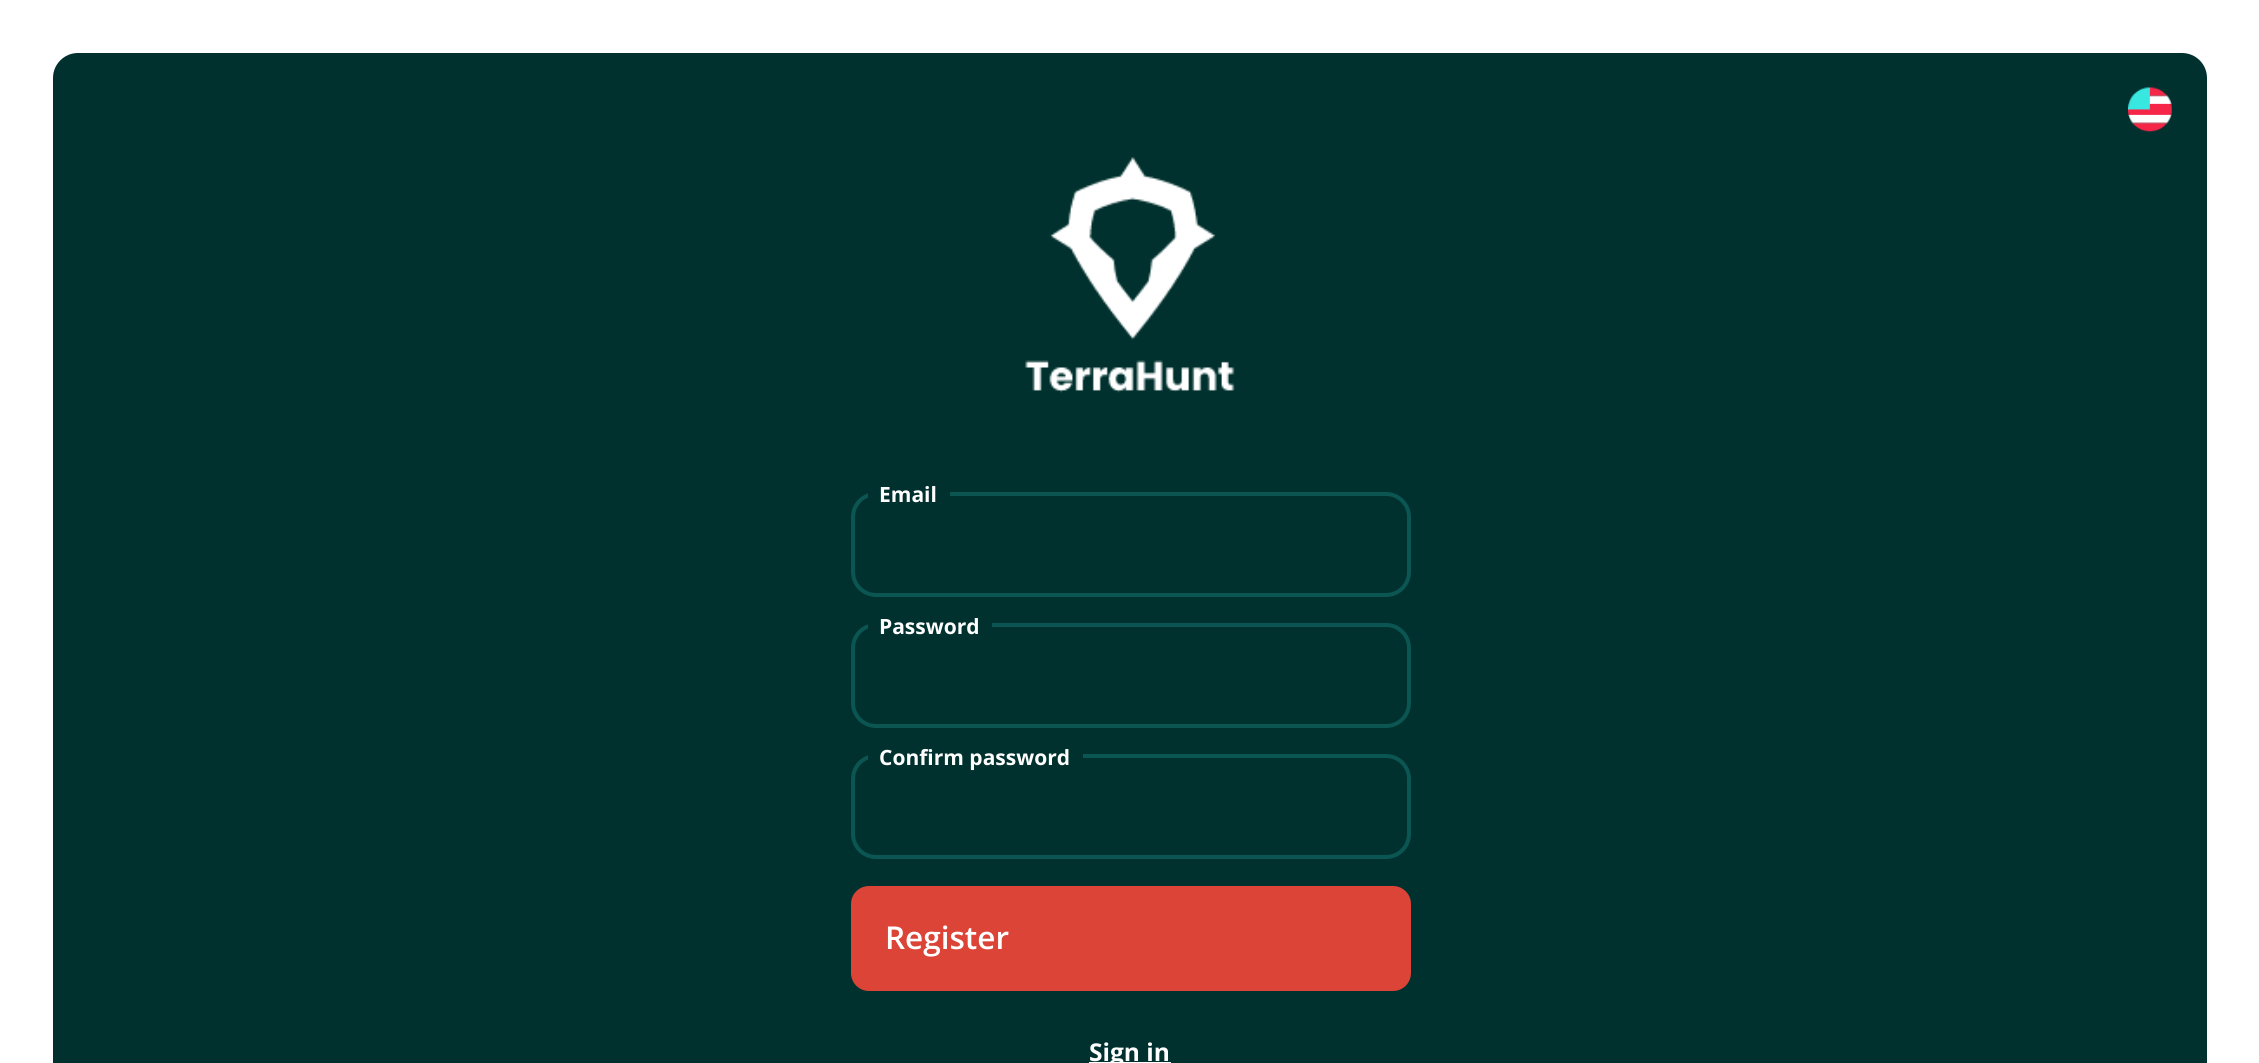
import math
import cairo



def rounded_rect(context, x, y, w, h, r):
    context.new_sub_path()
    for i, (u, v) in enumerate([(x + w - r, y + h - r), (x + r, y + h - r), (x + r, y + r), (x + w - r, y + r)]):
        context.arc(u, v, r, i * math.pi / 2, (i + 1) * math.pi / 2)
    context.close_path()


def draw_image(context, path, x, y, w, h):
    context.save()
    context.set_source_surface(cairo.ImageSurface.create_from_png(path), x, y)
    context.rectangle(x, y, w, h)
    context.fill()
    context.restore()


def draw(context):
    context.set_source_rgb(1, 1, 1)
    context.paint()
    context.set_source_rgb(0, 49 / 255, 46 / 255)
    rounded_rect(context, 53, 53, 2154, 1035, 25)
    context.fill()
    draw_image(context, "images/1.png", 2128, 87, 44, 45)
    draw_image(context, "images/2.png", 1025, 157, 210, 236)
    rounded_rect(context, 853, 494, 556, 101, 23)
    context.set_source_rgb(11 / 255, 85 / 255, 82 / 255)
    context.set_line_width(4)
    context.stroke()
    context.set_source_rgb(0, 49 / 255, 46 / 255)
    context.rectangle(868, 492, 82, 6)
    context.fill()
    rounded_rect(context, 853, 625, 556, 101, 23)
    context.set_source_rgb(11 / 255, 85 / 255, 82 / 255)
    context.stroke()
    context.set_source_rgb(0, 49 / 255, 46 / 255)
    context.rectangle(868, 623, 124, 6)
    context.fill()
    rounded_rect(context, 853, 756, 556, 101, 23)
    context.set_source_rgb(11 / 255, 85 / 255, 82 / 255)
    context.stroke()
    context.set_source_rgb(0, 49 / 255, 46 / 255)
    context.rectangle(868, 754, 215, 6)
    context.fill()
    context.set_source_rgb(219 / 255, 68 / 255, 55 / 255)
    rounded_rect(context, 851, 886, 560, 105, 18)
    context.fill()
    context.set_source_rgb(1, 1, 1)
    context.rectangle(1089, 1062, 82, 1)
    context.fill()
    context.select_font_face("Open Sans", cairo.FontSlant.NORMAL, cairo.FontWeight.BOLD)
    context.set_font_size(21)
    context.move_to(879, 502)
    context.show_text("Email")
    context.move_to(879, 634)
    context.show_text("Password")
    context.move_to(879, 765)
    context.show_text("Confirm password")
    context.select_font_face("Open Sans SemiBold")
    context.set_font_size(31.5)
    context.move_to(885, 949)
    context.show_text("Register")
    context.select_font_face("Open Sans", cairo.FontSlant.NORMAL, cairo.FontWeight.BOLD)
    context.set_font_size(24.5)
    context.move_to(1089, 1061)
    context.show_text("Sign in")


surface = cairo.ImageSurface(cairo.Format.RGB24, 2259, 1063)
context = cairo.Context(surface)
options = cairo.FontOptions()
options.set_hint_metrics(cairo.HintMetrics.OFF)
options.set_hint_style(cairo.HintStyle.NONE)
context.set_font_options(options)
context.set_miter_limit(4)
draw(context)
surface.write_to_png("out.png")
